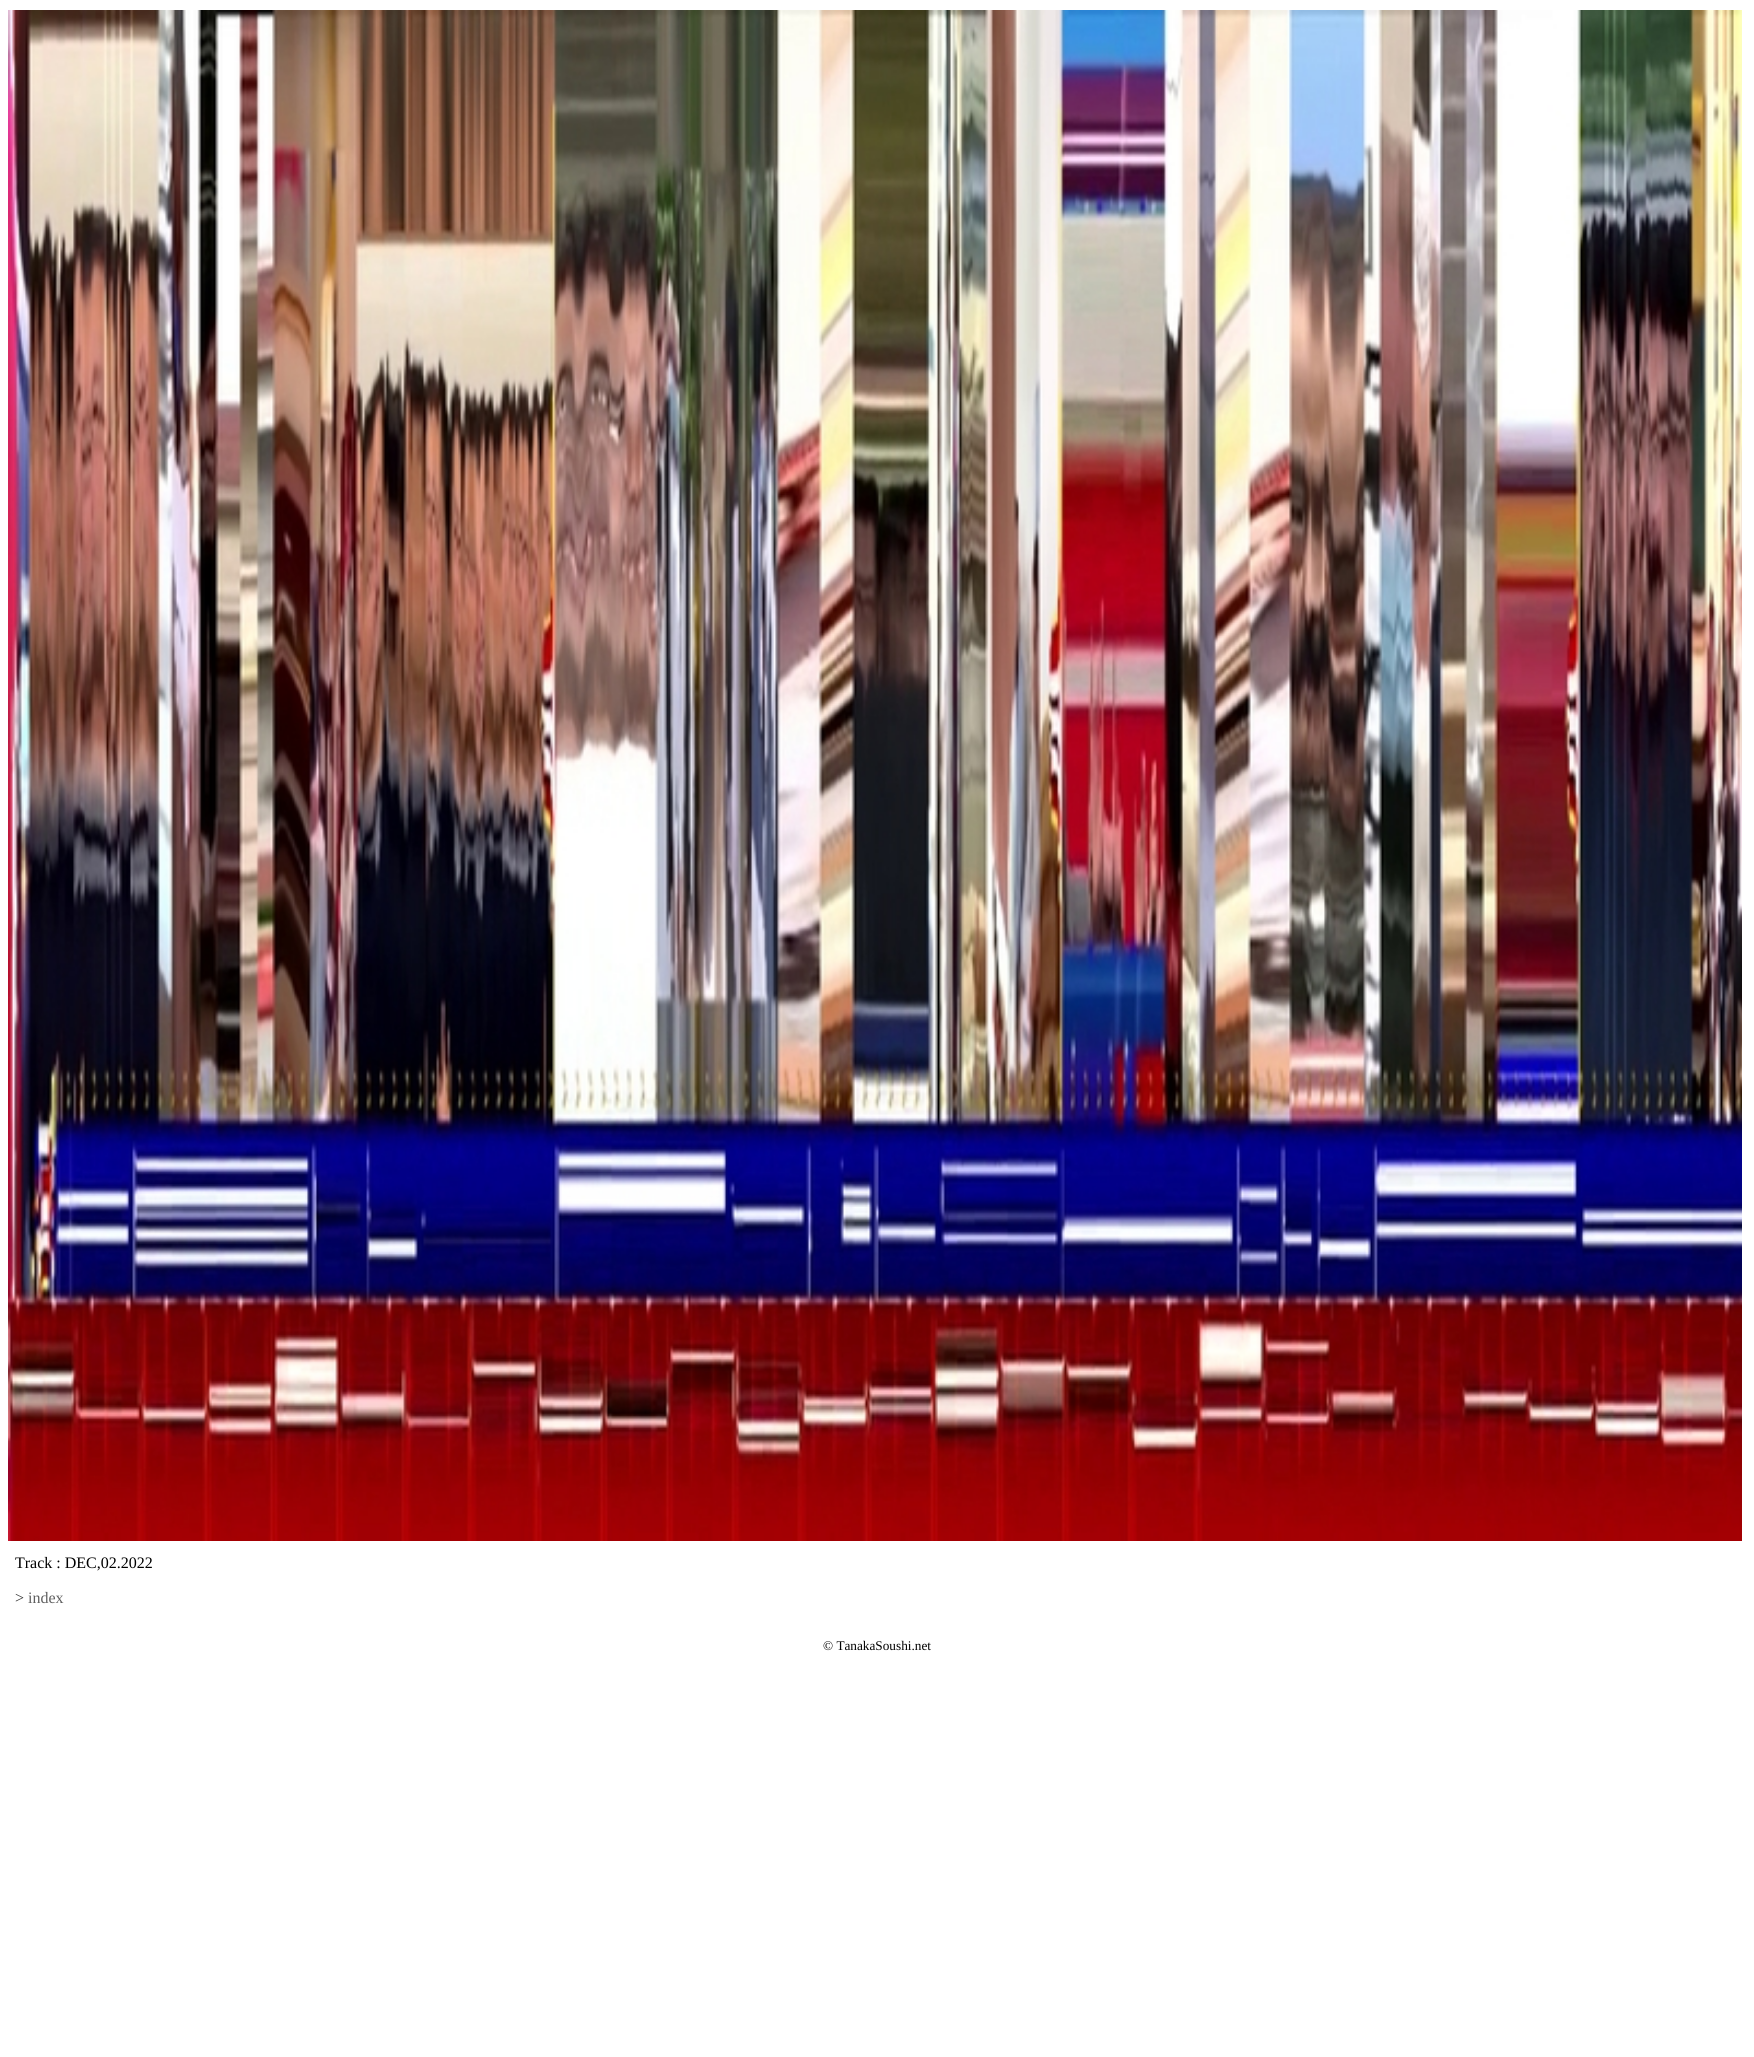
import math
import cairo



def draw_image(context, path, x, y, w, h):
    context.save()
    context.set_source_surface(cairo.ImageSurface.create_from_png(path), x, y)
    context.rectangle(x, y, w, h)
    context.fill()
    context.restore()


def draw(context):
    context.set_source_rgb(1, 1, 1)
    context.paint()
    draw_image(context, "images/1.png", 8, 10, 1734, 1531)
    context.select_font_face("Liberation Serif")
    context.set_font_size(16)
    context.set_source_rgb(0, 0, 0)
    context.move_to(15, 1568)
    context.show_text("Track : DEC,02.2022")
    context.set_source_rgb(51 / 255, 51 / 255, 51 / 255)
    context.move_to(15, 1603)
    context.show_text(">")
    context.set_source_rgb(95 / 255, 95 / 255, 95 / 255)
    context.move_to(28, 1603)
    context.show_text("index")
    context.set_font_size(13.25)
    context.set_source_rgb(0, 0, 0)
    context.move_to(823, 1650)
    context.show_text("© TanakaSoushi.net")


surface = cairo.ImageSurface(cairo.Format.RGB24, 1754, 2057)
context = cairo.Context(surface)
options = cairo.FontOptions()
options.set_hint_metrics(cairo.HintMetrics.OFF)
options.set_hint_style(cairo.HintStyle.NONE)
context.set_font_options(options)
context.set_miter_limit(4)
draw(context)
surface.write_to_png("out.png")
